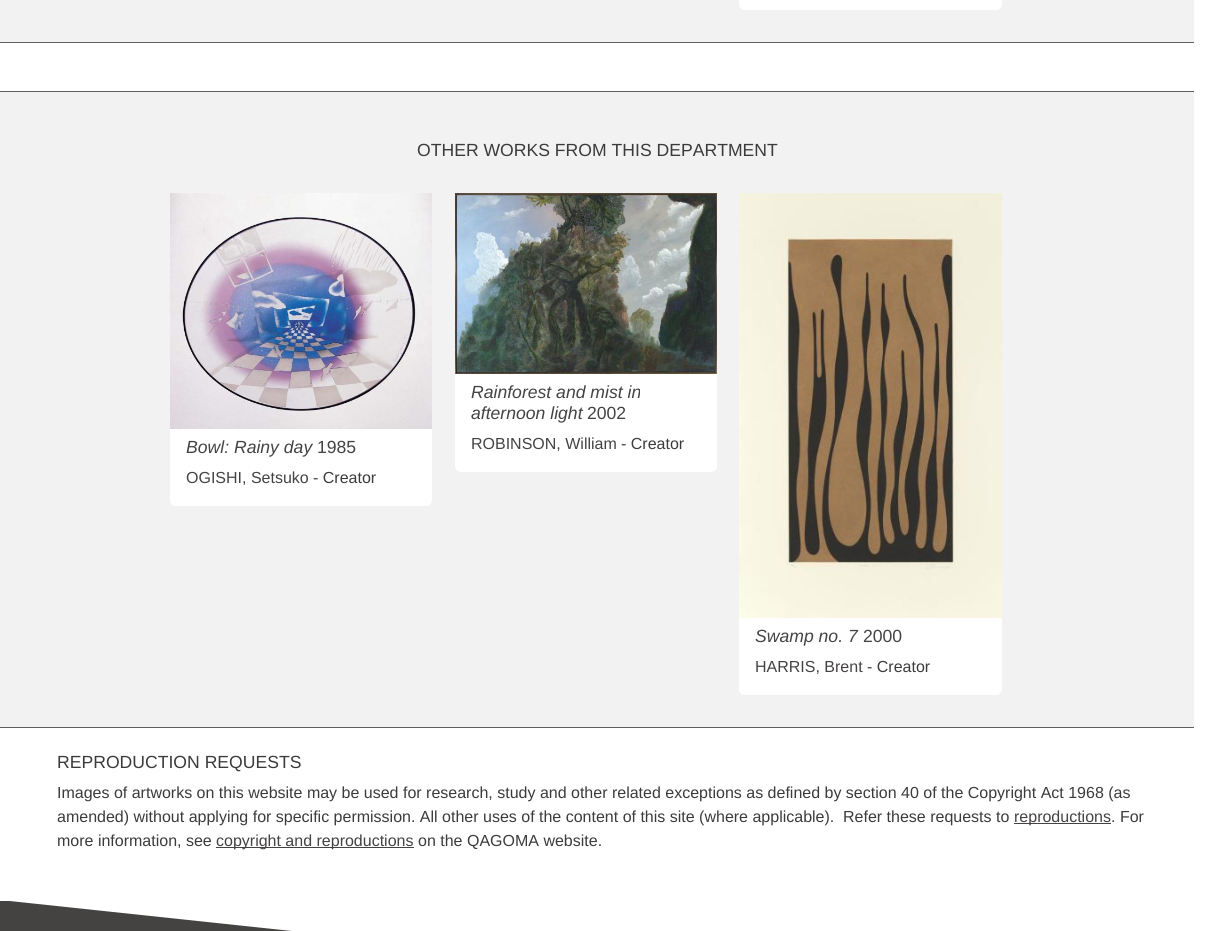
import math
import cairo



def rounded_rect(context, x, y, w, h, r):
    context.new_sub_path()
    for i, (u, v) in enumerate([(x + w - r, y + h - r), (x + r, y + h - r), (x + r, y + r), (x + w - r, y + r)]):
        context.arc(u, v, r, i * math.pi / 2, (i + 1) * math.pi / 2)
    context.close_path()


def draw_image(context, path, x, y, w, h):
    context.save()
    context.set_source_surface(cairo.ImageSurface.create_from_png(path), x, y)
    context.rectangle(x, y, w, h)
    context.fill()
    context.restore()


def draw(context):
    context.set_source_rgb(1, 1, 1)
    context.paint()
    context.set_source_rgb(242 / 255, 242 / 255, 242 / 255)
    context.rectangle(0, 0, 1194, 42)
    context.fill()
    context.set_source_rgb(95 / 255, 95 / 255, 95 / 255)
    context.rectangle(0, 42, 1194, 1)
    context.fill()
    context.set_source_rgb(1, 1, 1)
    rounded_rect(context, 739, -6, 263, 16, 6)
    context.fill()
    context.set_source_rgb(242 / 255, 242 / 255, 242 / 255)
    context.rectangle(0, 92, 1194, 635)
    context.fill()
    context.set_source_rgb(95 / 255, 95 / 255, 95 / 255)
    context.rectangle(0, 91, 1194, 1)
    context.fill()
    context.rectangle(0, 727, 1194, 1)
    context.fill()
    context.set_source_rgb(1, 1, 1)
    rounded_rect(context, 455, 193, 262, 279, 6)
    context.fill()
    draw_image(context, "images/1.png", 455, 193, 262, 181)
    rounded_rect(context, 170, 193, 262, 313, 6)
    context.fill()
    draw_image(context, "images/2.png", 170, 193, 262, 236)
    rounded_rect(context, 739, 193, 263, 502, 6)
    context.fill()
    draw_image(context, "images/3.png", 739, 193, 263, 425)
    context.set_source_rgb(69 / 255, 66 / 255, 66 / 255)
    context.rectangle(1014, 823, 97, 1)
    context.fill()
    context.rectangle(216, 847, 198, 1)
    context.fill()
    context.rectangle(0, 901, 292, 30)
    context.fill()
    context.set_source_rgb(1, 1, 1)
    context.new_path()
    context.move_to(0, 900)
    context.line_to(1206, 900)
    context.line_to(1206, 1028)
    context.line_to(1204, 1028)
    context.close_path()
    context.fill()
    context.select_font_face("Liberation Sans")
    context.set_font_size(17.6)
    context.set_source_rgb(59 / 255, 59 / 255, 59 / 255)
    context.move_to(417, 156)
    context.show_text("OTHER WORKS FROM THIS DEPARTMENT")
    context.select_font_face("Liberation Sans", cairo.FontSlant.ITALIC)
    context.set_source_rgb(69 / 255, 66 / 255, 66 / 255)
    context.move_to(471, 398)
    context.show_text("Rainforest and mist in")
    context.move_to(471, 419)
    context.show_text("afternoon light")
    context.select_font_face("Liberation Sans")
    context.move_to(587, 419)
    context.show_text("2002")
    context.set_font_size(16)
    context.move_to(471, 449)
    context.show_text("ROBINSON, William")
    context.set_source_rgb(59 / 255, 59 / 255, 59 / 255)
    context.move_to(621, 449)
    context.show_text("- Creator")
    context.select_font_face("Liberation Sans", cairo.FontSlant.ITALIC)
    context.set_font_size(17.6)
    context.set_source_rgb(69 / 255, 66 / 255, 66 / 255)
    context.move_to(186, 453)
    context.show_text("Bowl: Rainy day")
    context.select_font_face("Liberation Sans")
    context.move_to(317, 453)
    context.show_text("1985")
    context.set_font_size(16)
    context.move_to(186, 483)
    context.show_text("OGISHI, Setsuko")
    context.set_source_rgb(59 / 255, 59 / 255, 59 / 255)
    context.move_to(313, 483)
    context.show_text("- Creator")
    context.select_font_face("Liberation Sans", cairo.FontSlant.ITALIC)
    context.set_font_size(17.6)
    context.set_source_rgb(69 / 255, 66 / 255, 66 / 255)
    context.move_to(755, 642)
    context.show_text("Swamp no. 7")
    context.select_font_face("Liberation Sans")
    context.move_to(863, 642)
    context.show_text("2000")
    context.set_font_size(16)
    context.move_to(755, 672)
    context.show_text("HARRIS, Brent")
    context.set_source_rgb(59 / 255, 59 / 255, 59 / 255)
    context.move_to(867, 672)
    context.show_text("- Creator")
    context.set_font_size(17.6)
    context.move_to(57, 768)
    context.show_text("REPRODUCTION REQUESTS")
    context.set_font_size(16)
    context.move_to(57, 798)
    context.show_text("Images of artworks on this website may be used for research, study and other related exceptions as defined by section 40 of the Copyright Act 1968 (as")
    context.move_to(57, 822)
    context.show_text("amended) without applying for specific permission. All other uses of the content of this site (where applicable).")
    context.move_to(843, 822)
    context.show_text("Refer these requests to")
    context.set_source_rgb(69 / 255, 66 / 255, 66 / 255)
    context.move_to(1014, 822)
    context.show_text("reproductions")
    context.set_source_rgb(59 / 255, 59 / 255, 59 / 255)
    context.move_to(1111, 822)
    context.show_text(". For")
    context.move_to(57, 846)
    context.show_text("more information, see")
    context.set_source_rgb(69 / 255, 66 / 255, 66 / 255)
    context.move_to(216, 846)
    context.show_text("copyright and reproductions")
    context.set_source_rgb(59 / 255, 59 / 255, 59 / 255)
    context.move_to(418, 846)
    context.show_text("on the QAGOMA website.")


surface = cairo.ImageSurface(cairo.Format.RGB24, 1206, 931)
context = cairo.Context(surface)
options = cairo.FontOptions()
options.set_hint_metrics(cairo.HintMetrics.OFF)
options.set_hint_style(cairo.HintStyle.NONE)
context.set_font_options(options)
context.set_miter_limit(4)
draw(context)
surface.write_to_png("out.png")
